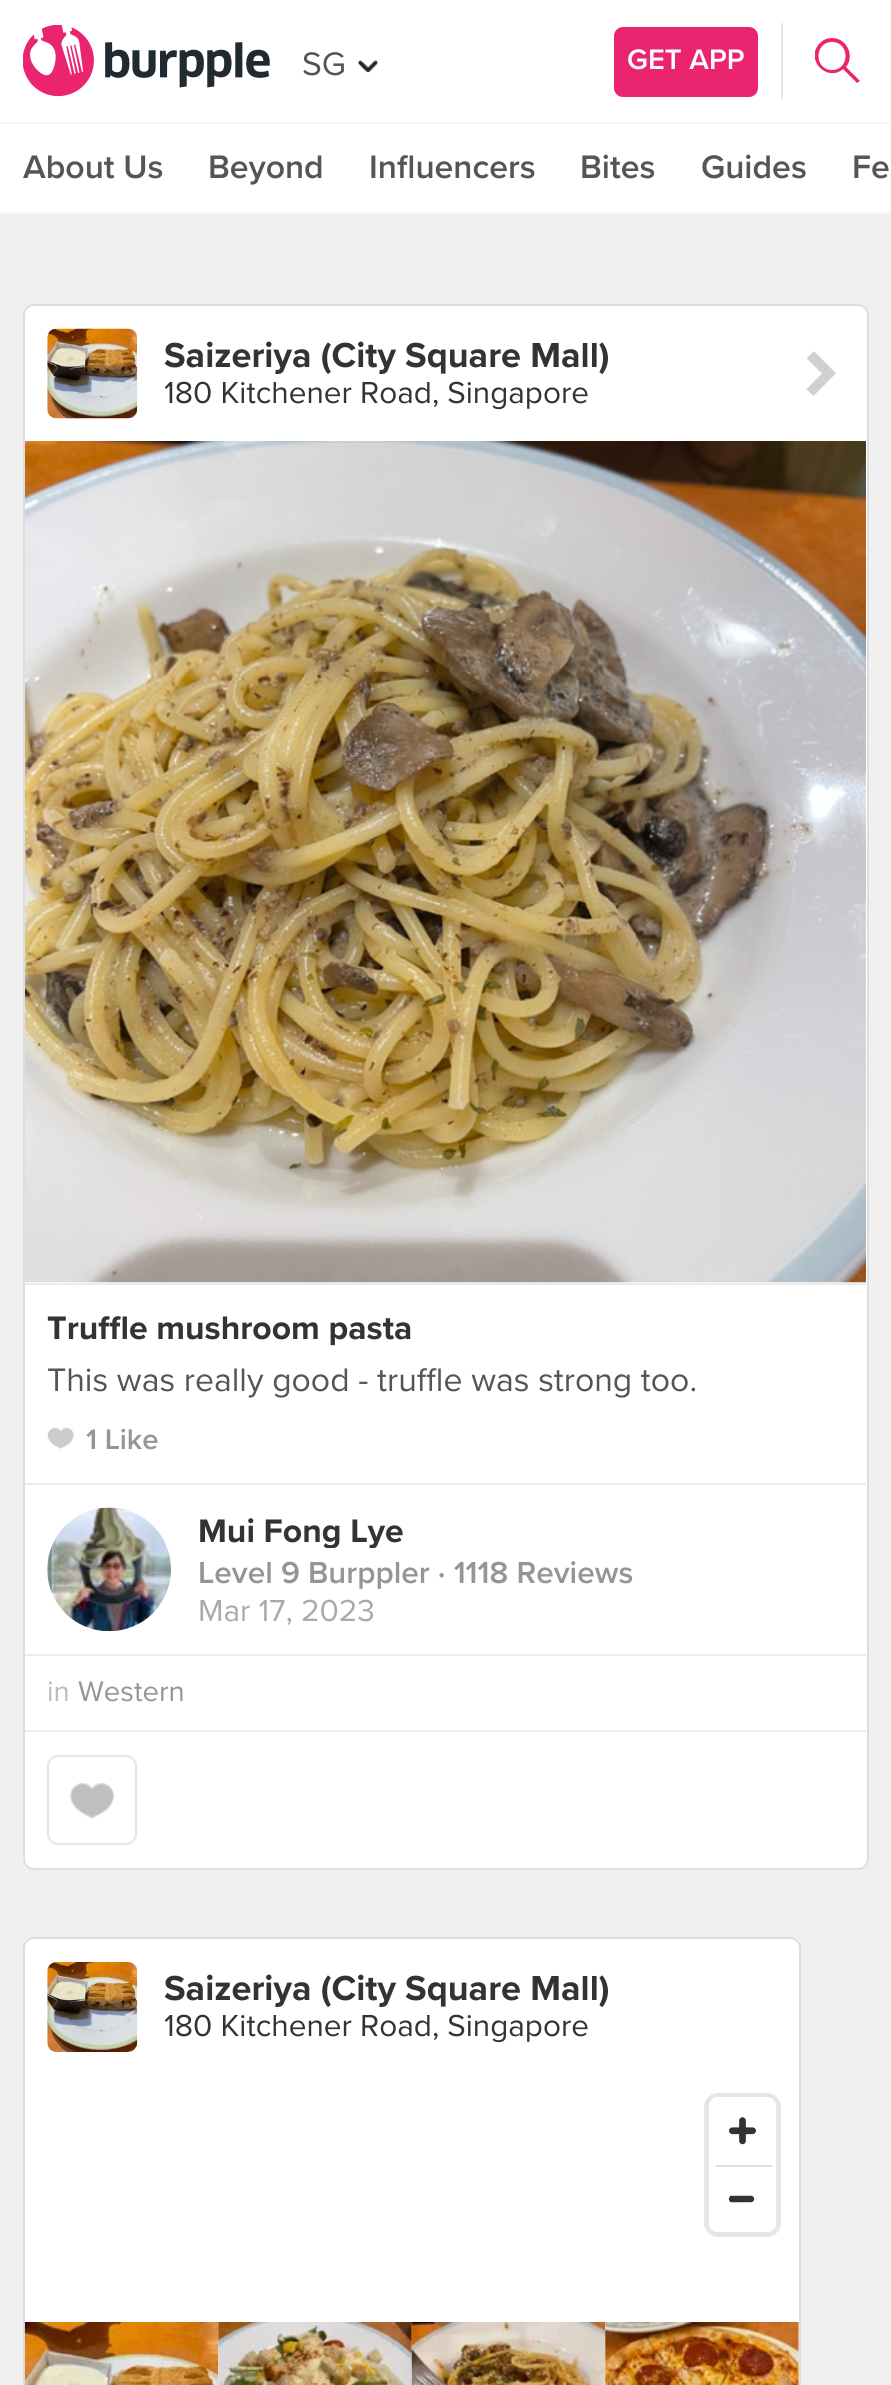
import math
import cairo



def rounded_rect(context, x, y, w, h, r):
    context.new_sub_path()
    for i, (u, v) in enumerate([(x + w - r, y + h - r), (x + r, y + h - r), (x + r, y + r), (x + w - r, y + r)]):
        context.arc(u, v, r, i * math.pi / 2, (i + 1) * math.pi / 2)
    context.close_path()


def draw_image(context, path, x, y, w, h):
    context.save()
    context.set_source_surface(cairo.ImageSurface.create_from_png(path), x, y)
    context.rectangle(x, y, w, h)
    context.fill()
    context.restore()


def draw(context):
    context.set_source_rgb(240 / 255, 240 / 255, 240 / 255)
    context.paint()
    context.set_source_rgb(1, 1, 1)
    context.rectangle(0, 0, 891, 212)
    context.fill()
    context.set_source_rgb(245 / 255, 245 / 255, 245 / 255)
    context.rectangle(0, 122, 891, 2)
    context.fill()
    draw_image(context, "images/1.png", 23, 25, 247, 72)
    draw_image(context, "images/2.png", 357, 60, 21, 13)
    context.set_source_rgb(234 / 255, 36 / 255, 110 / 255)
    rounded_rect(context, 614, 27, 144, 70, 9)
    context.fill()
    context.set_source_rgb(231 / 255, 231 / 255, 231 / 255)
    context.rectangle(781, 23, 2, 76)
    context.fill()
    context.save()
    context.rectangle(815, 38, 45, 45)
    context.clip()
    context.set_source_rgb(234 / 255, 36 / 255, 110 / 255)
    context.new_path()
    context.move_to(832, 38)
    context.curve_to(847, 38, 855, 56, 846, 67)
    context.line_to(860, 81)
    context.line_to(857, 83)
    context.line_to(843, 69)
    context.curve_to(827, 83, 804, 59, 820, 43)
    context.curve_to(823, 40, 827, 38, 832, 38)
    context.close_path()
    context.move_to(832, 42)
    context.curve_to(814, 42, 814, 70, 832, 70)
    context.curve_to(850, 70, 850, 42, 832, 42)
    context.close_path()
    context.fill()
    context.restore()
    context.set_source_rgb(245 / 255, 245 / 255, 245 / 255)
    context.rectangle(0, 212, 891, 2)
    context.fill()
    context.set_source_rgb(1, 1, 1)
    rounded_rect(context, 24, 305, 844, 1564, 10)
    context.fill_preserve()
    context.set_source_rgb(222 / 255, 222 / 255, 222 / 255)
    context.stroke()
    draw_image(context, "images/3.png", 47, 328, 91, 91)
    draw_image(context, "images/4.png", 806, 351, 30, 45)
    draw_image(context, "images/5.png", 25, 441, 841, 842)
    context.set_source_rgb(236 / 255, 236 / 255, 236 / 255)
    context.rectangle(25, 1283, 841, 2)
    context.fill()
    draw_image(context, "images/6.png", 47, 1427, 27, 22)
    context.rectangle(25, 1483, 841, 2)
    context.fill()
    draw_image(context, "images/7.png", 47, 1507, 124, 125)
    context.rectangle(25, 1654, 841, 2)
    context.fill()
    context.rectangle(25, 1730, 841, 2)
    context.fill()
    draw_image(context, "images/8.png", 69, 1783, 46, 36)
    rounded_rect(context, 48, 1756, 88, 88, 10)
    context.set_source_rgb(229 / 255, 229 / 255, 229 / 255)
    context.stroke()
    context.set_source_rgb(1, 1, 1)
    rounded_rect(context, 24, 1938, 776, 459, 10)
    context.fill_preserve()
    context.set_source_rgb(222 / 255, 222 / 255, 222 / 255)
    context.stroke()
    draw_image(context, "images/9.png", 47, 1962, 91, 90)
    rounded_rect(context, 706.5, 2095.5, 72, 139, 11.5)
    context.set_source_rgb(230 / 255, 230 / 255, 230 / 255)
    context.set_line_width(5)
    context.stroke()
    context.set_source_rgb(1, 1, 1)
    rounded_rect(context, 709, 2097, 67, 135, 9)
    context.fill()
    draw_image(context, "images/10.png", 729, 2117, 27, 28)
    draw_image(context, "images/11.png", 728, 2195, 27, 8)
    context.set_source_rgb(221 / 255, 221 / 255, 221 / 255)
    context.rectangle(716, 2165, 56, 2)
    context.fill()
    draw_image(context, "images/12.png", 24, 2322, 195, 63)
    draw_image(context, "images/13.png", 218, 2322, 194, 63)
    draw_image(context, "images/14.png", 411, 2322, 195, 63)
    draw_image(context, "images/15.png", 605, 2322, 194, 63)
    context.select_font_face("Proxima Nova")
    context.set_font_size(33.75)
    context.set_source_rgb(85 / 255, 85 / 255, 85 / 255)
    context.move_to(302, 75)
    context.show_text("SG")
    context.select_font_face("Proxima Nova SemiBold")
    context.set_font_size(29.25)
    context.set_source_rgb(1, 1, 1)
    context.move_to(627, 69)
    context.show_text("GET APP")
    context.set_font_size(33.75)
    context.set_source_rgb(85 / 255, 85 / 255, 85 / 255)
    context.move_to(23, 178)
    context.show_text("About Us")
    context.move_to(208, 178)
    context.show_text("Beyond")
    context.move_to(369, 178)
    context.show_text("Influencers")
    context.move_to(580, 178)
    context.show_text("Bites")
    context.move_to(701, 178)
    context.show_text("Guides")
    context.move_to(852, 178)
    context.show_text("Fe")
    context.select_font_face("Proxima Nova", cairo.FontSlant.NORMAL, cairo.FontWeight.BOLD)
    context.set_font_size(36)
    context.set_source_rgb(51 / 255, 51 / 255, 51 / 255)
    context.move_to(164, 367)
    context.show_text("Saizeriya (City Square Mall)")
    context.select_font_face("Proxima Nova")
    context.set_font_size(31.5)
    context.move_to(164, 403)
    context.show_text("180 Kitchener Road, Singapore")
    context.select_font_face("Proxima Nova", cairo.FontSlant.NORMAL, cairo.FontWeight.BOLD)
    context.set_font_size(33.75)
    context.move_to(47, 1339)
    context.show_text("Truffle mushroom pasta")
    context.select_font_face("Proxima Nova")
    context.set_source_rgb(85 / 255, 85 / 255, 85 / 255)
    context.move_to(47, 1391)
    context.show_text("This was really good - truffle was strong too.")
    context.select_font_face("Proxima Nova SemiBold")
    context.set_font_size(29.25)
    context.set_source_rgb(149 / 255, 149 / 255, 149 / 255)
    context.move_to(86, 1449)
    context.show_text("1 Like")
    context.save()
    context.rectangle(198, 1514, 434, 34)
    context.clip()
    context.select_font_face("Proxima Nova", cairo.FontSlant.NORMAL, cairo.FontWeight.BOLD)
    context.set_font_size(33.75)
    context.set_source_rgb(51 / 255, 51 / 255, 51 / 255)
    context.move_to(198, 1542)
    context.show_text("Mui Fong Lye")
    context.restore()
    context.set_font_size(31.5)
    context.move_to(198, 1583)
    context.show_text("Level 9 Burppler · 1118 Reviews")
    context.select_font_face("Proxima Nova")
    context.set_source_rgb(170 / 255, 170 / 255, 170 / 255)
    context.move_to(198, 1621)
    context.show_text("Mar 17, 2023")
    context.set_font_size(29.25)
    context.set_source_rgb(187 / 255, 187 / 255, 187 / 255)
    context.move_to(47, 1701)
    context.show_text("in")
    context.set_source_rgb(149 / 255, 149 / 255, 149 / 255)
    context.move_to(78, 1701)
    context.show_text("Western")
    context.select_font_face("Proxima Nova", cairo.FontSlant.NORMAL, cairo.FontWeight.BOLD)
    context.set_font_size(36)
    context.set_source_rgb(51 / 255, 51 / 255, 51 / 255)
    context.move_to(164, 2000)
    context.show_text("Saizeriya (City Square Mall)")
    context.select_font_face("Proxima Nova")
    context.set_font_size(31.5)
    context.move_to(164, 2036)
    context.show_text("180 Kitchener Road, Singapore")


surface = cairo.ImageSurface(cairo.Format.RGB24, 891, 2385)
context = cairo.Context(surface)
options = cairo.FontOptions()
options.set_hint_metrics(cairo.HintMetrics.OFF)
options.set_hint_style(cairo.HintStyle.NONE)
context.set_font_options(options)
context.set_miter_limit(4)
draw(context)
surface.write_to_png("out.png")
